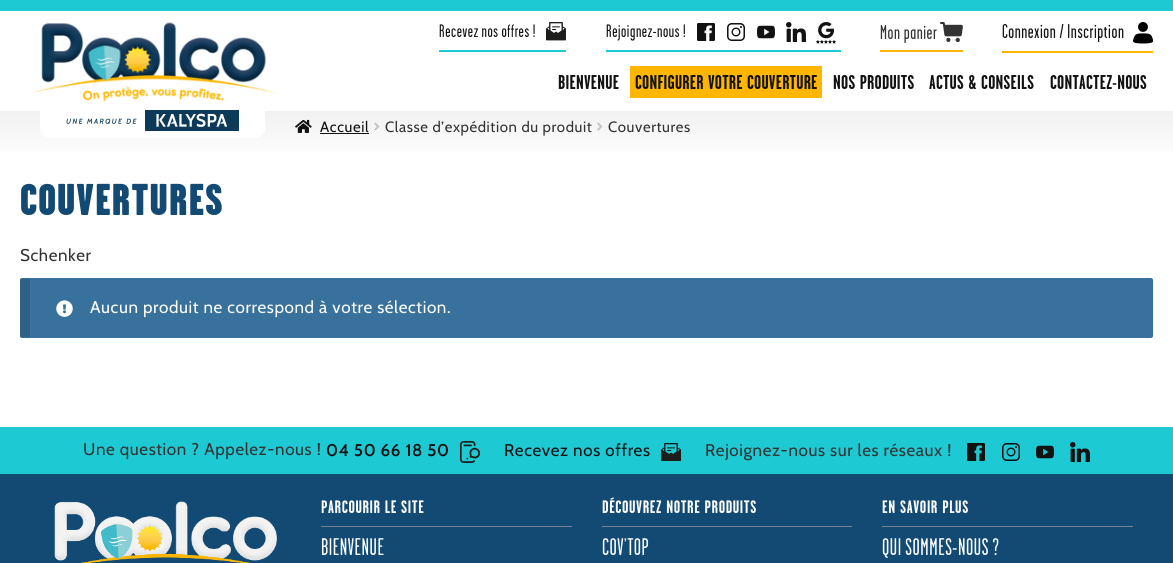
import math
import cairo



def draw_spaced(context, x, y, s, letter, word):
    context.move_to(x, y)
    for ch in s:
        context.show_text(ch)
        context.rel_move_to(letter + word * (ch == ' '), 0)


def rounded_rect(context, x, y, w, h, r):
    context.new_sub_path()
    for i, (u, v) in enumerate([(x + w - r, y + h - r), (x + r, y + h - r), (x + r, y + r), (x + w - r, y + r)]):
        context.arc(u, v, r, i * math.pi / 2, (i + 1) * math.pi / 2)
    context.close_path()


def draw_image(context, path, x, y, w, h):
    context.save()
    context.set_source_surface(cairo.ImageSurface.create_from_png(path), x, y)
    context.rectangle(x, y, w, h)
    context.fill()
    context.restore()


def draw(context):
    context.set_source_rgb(1, 1, 1)
    context.paint()
    context.set_source_rgb(29 / 255, 201 / 255, 211 / 255)
    context.rectangle(0, 0, 1173, 11)
    context.fill()
    draw_image(context, "images/1.png", 31, 22, 245, 80)
    gradient = cairo.LinearGradient(587, 111, 587, 161)
    gradient.add_color_stop_rgba(0, 241 / 255, 241 / 255, 241 / 255, 1)
    gradient.add_color_stop_rgba(1, 1, 1, 1, 1)
    context.set_source(gradient)
    context.rectangle(0, 111, 1173, 41)
    context.fill()
    draw_image(context, "images/2.png", 40, 110, 225, 28)
    context.set_source_rgb(29 / 255, 201 / 255, 211 / 255)
    context.rectangle(439, 50, 127, 2)
    context.fill()
    draw_image(context, "images/3.png", 546, 22, 20, 19)
    context.rectangle(606, 50, 235, 2)
    context.fill()
    draw_image(context, "images/4.png", 697, 23, 18, 18)
    draw_image(context, "images/5.png", 727, 23, 18, 18)
    draw_image(context, "images/6.png", 757, 25, 18, 14)
    draw_image(context, "images/7.png", 786, 22, 20, 20)
    draw_image(context, "images/8.png", 816, 22, 20, 22)
    context.set_source_rgb(1, 182 / 255, 0)
    context.rectangle(880, 50, 83, 2)
    context.fill()
    draw_image(context, "images/9.png", 940, 22, 23, 20)
    context.rectangle(1002, 51, 151, 2)
    context.fill()
    draw_image(context, "images/10.png", 1133, 22, 20, 22)
    context.rectangle(630, 66, 192, 32)
    context.fill()
    draw_image(context, "images/11.png", 295, 119, 17, 14)
    context.set_source_rgb(18 / 255, 18 / 255, 18 / 255)
    context.rectangle(320, 133, 49, 1)
    context.fill()
    draw_image(context, "images/12.png", 374, 122, 6, 9)
    draw_image(context, "images/12.png", 597, 122, 6, 9)
    context.set_source_rgb(56 / 255, 113 / 255, 155 / 255)
    rounded_rect(context, 20, 278, 1133, 60, 2)
    context.fill()
    context.set_source_rgba(0, 0, 0, 0.15)
    context.rectangle(20, 279, 10, 58)
    context.fill()
    draw_image(context, "images/13.png", 56, 300, 17, 17)
    context.set_source_rgb(29 / 255, 201 / 255, 211 / 255)
    context.rectangle(0, 427, 1173, 47)
    context.fill()
    draw_image(context, "images/14.png", 460, 441, 20, 22)
    draw_image(context, "images/15.png", 661, 443, 20, 18)
    draw_image(context, "images/16.png", 967, 443, 18, 18)
    draw_image(context, "images/17.png", 1002, 443, 18, 18)
    draw_image(context, "images/18.png", 1036, 445, 18, 14)
    draw_image(context, "images/19.png", 1070, 442, 20, 20)
    context.set_source_rgb(18 / 255, 74 / 255, 115 / 255)
    context.rectangle(0, 474, 1173, 89)
    context.fill()
    draw_image(context, "images/20.png", 54, 501, 223, 62)
    context.set_source_rgb(119 / 255, 131 / 255, 146 / 255)
    context.rectangle(321, 526, 251, 1)
    context.fill()
    context.rectangle(602, 526, 250, 1)
    context.fill()
    context.rectangle(882, 526, 251, 1)
    context.fill()
    context.select_font_face("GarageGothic")
    context.set_font_size(18)
    context.set_source_rgb(18 / 255, 18 / 255, 18 / 255)
    draw_spaced(context, 439, 37, "Recevez nos offres !", 0.6, 0)
    draw_spaced(context, 606, 37, "Rejoignez-nous !", 0.6, 0)
    context.set_font_size(20)
    context.set_source_rgb(51 / 255, 51 / 255, 51 / 255)
    draw_spaced(context, 880, 39, "Mon panier", 0.6, 0)
    context.set_source_rgb(18 / 255, 18 / 255, 18 / 255)
    draw_spaced(context, 1002, 38, "Connexion / Inscription", 0.6, 0)
    context.select_font_face("GarageGothic", cairo.FontSlant.NORMAL, cairo.FontWeight.BOLD)
    draw_spaced(context, 558, 89, "BIENVENUE", 0.25, 0)
    draw_spaced(context, 635, 89, "CONFIGURER VOTRE COUVERTURE", 0.25, 0)
    draw_spaced(context, 833, 89, "NOS PRODUITS", 0.25, 0)
    draw_spaced(context, 929, 89, "ACTUS & CONSEILS", 0.25, 0)
    draw_spaced(context, 1050, 89, "CONTACTEZ-NOUS", 0.25, 0)
    context.select_font_face("Cabin")
    context.set_font_size(14.9)
    draw_spaced(context, 320, 132, "Accueil", 0.6, 0)
    context.set_source_rgb(51 / 255, 51 / 255, 51 / 255)
    draw_spaced(context, 385, 132, "Classe d’expédition du produit", 0.6, 0)
    draw_spaced(context, 608, 132, "Couvertures", 0.6, 0)
    context.select_font_face("GarageGothic Black")
    context.set_font_size(44.5)
    context.set_source_rgb(18 / 255, 74 / 255, 115 / 255)
    draw_spaced(context, 20, 215, "COUVERTURES", 1, 0)
    context.select_font_face("Cabin")
    context.set_font_size(17)
    context.set_source_rgb(51 / 255, 51 / 255, 51 / 255)
    draw_spaced(context, 20, 261, "Schenker", 0.6, 0)
    context.set_source_rgb(1, 1, 1)
    draw_spaced(context, 90, 313, "Aucun produit ne correspond à votre sélection.", 0.6, 0)
    context.set_source_rgb(51 / 255, 51 / 255, 51 / 255)
    draw_spaced(context, 83, 455, "Une question ? Appelez-nous !", 0.6, 0)
    context.select_font_face("Cabin SemiBold")
    context.set_source_rgb(18 / 255, 18 / 255, 18 / 255)
    draw_spaced(context, 326, 456, "04 50 66 18 50", 0.6, 0)
    context.select_font_face("Cabin")
    draw_spaced(context, 504, 456, "Recevez nos offres", 0.6, 0)
    context.set_source_rgb(51 / 255, 51 / 255, 51 / 255)
    draw_spaced(context, 705, 456, "Rejoignez-nous sur les réseaux !", 0.6, 0)
    context.select_font_face("GarageGothic", cairo.FontSlant.NORMAL, cairo.FontWeight.BOLD)
    context.set_font_size(18)
    context.set_source_rgb(1, 1, 1)
    draw_spaced(context, 321, 513, "PARCOURIR LE SITE", 0.6, 0)
    context.select_font_face("GarageGothic")
    context.set_font_size(24)
    draw_spaced(context, 321, 555, "BIENVENUE", 0.6, 0)
    context.select_font_face("GarageGothic", cairo.FontSlant.NORMAL, cairo.FontWeight.BOLD)
    context.set_font_size(18)
    draw_spaced(context, 602, 513, "DÉCOUVREZ NOTRE PRODUITS", 0.6, 0)
    context.select_font_face("GarageGothic")
    context.set_font_size(24)
    draw_spaced(context, 602, 555, "COV’TOP", 0.6, 0)
    context.select_font_face("GarageGothic", cairo.FontSlant.NORMAL, cairo.FontWeight.BOLD)
    context.set_font_size(18)
    draw_spaced(context, 882, 513, "EN SAVOIR PLUS", 0.6, 0)
    context.select_font_face("GarageGothic")
    context.set_font_size(24)
    draw_spaced(context, 882, 555, "QUI SOMMES-NOUS ?", 0.6, 0)


surface = cairo.ImageSurface(cairo.Format.RGB24, 1173, 563)
context = cairo.Context(surface)
options = cairo.FontOptions()
options.set_hint_metrics(cairo.HintMetrics.OFF)
options.set_hint_style(cairo.HintStyle.NONE)
context.set_font_options(options)
context.set_miter_limit(4)
draw(context)
surface.write_to_png("out.png")
